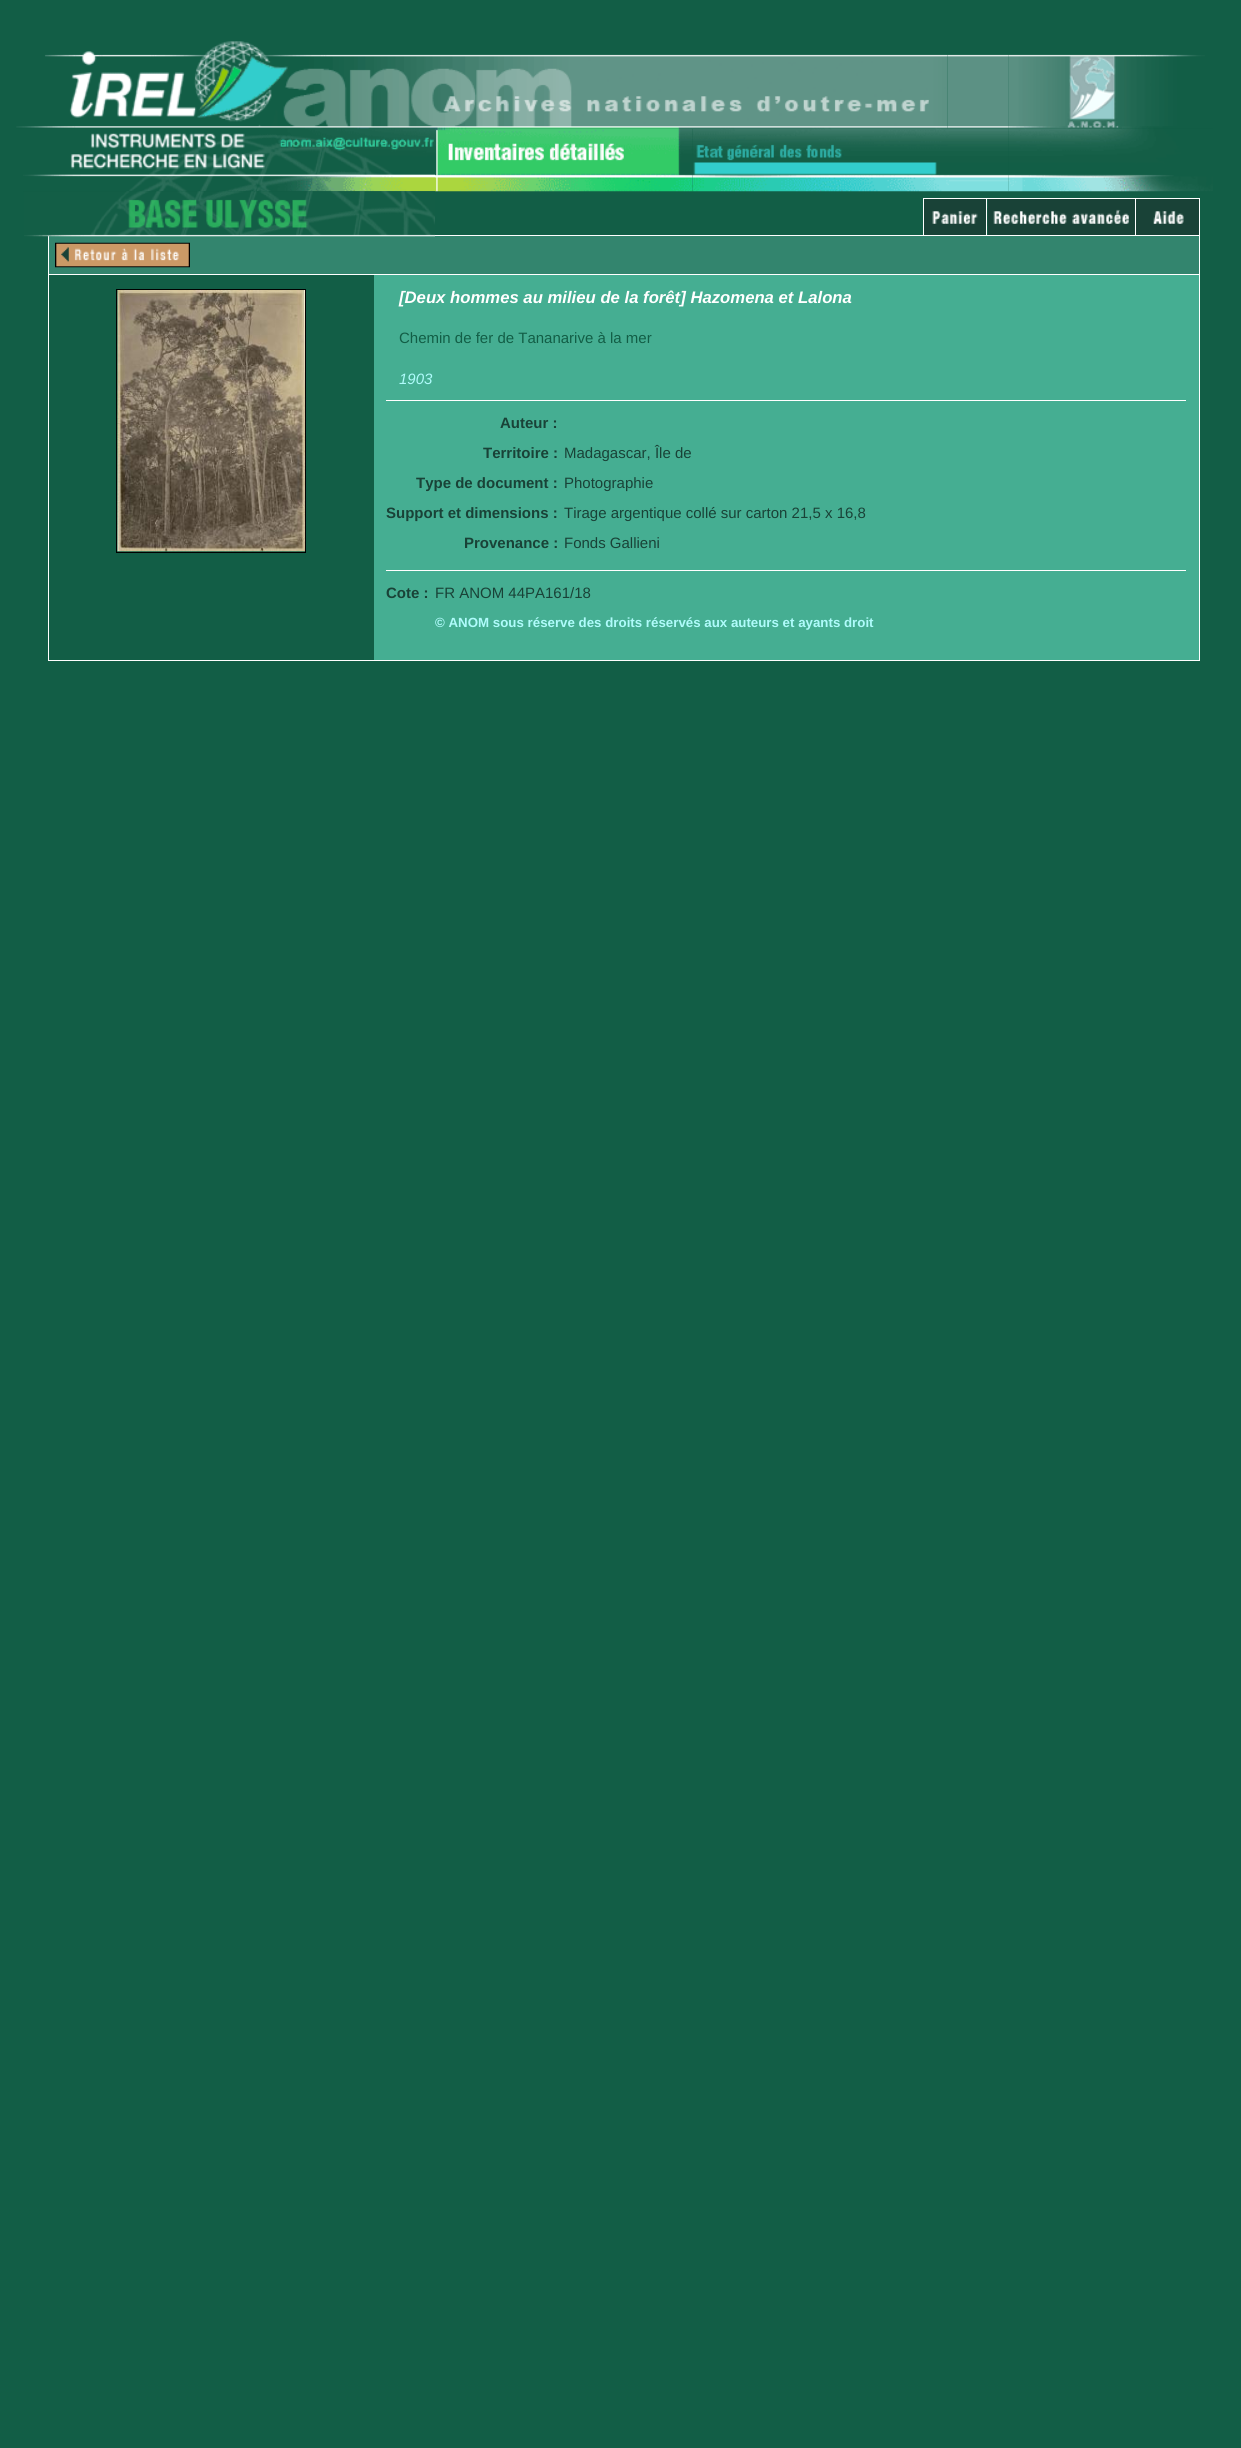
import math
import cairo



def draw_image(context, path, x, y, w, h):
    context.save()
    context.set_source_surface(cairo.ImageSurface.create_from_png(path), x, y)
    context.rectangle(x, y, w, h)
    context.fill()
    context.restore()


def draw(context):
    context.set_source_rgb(18 / 255, 94 / 255, 70 / 255)
    context.paint()
    draw_image(context, "images/2.png", 947, 54, 62, 75)
    draw_image(context, "images/1.png", 16, 41, 932, 88)
    draw_image(context, "images/3.png", 1008, 54, 197, 75)
    draw_image(context, "images/4.png", 23, 128, 412, 64)
    draw_image(context, "images/5.png", 435, 128, 258, 64)
    draw_image(context, "images/6.png", 692, 128, 258, 64)
    draw_image(context, "images/7.png", 950, 129, 59, 63)
    draw_image(context, "images/8.png", 1008, 128, 205, 64)
    context.set_source_rgb(1, 1, 1)
    context.rectangle(924, 198, 276, 1)
    context.fill()
    context.rectangle(1199, 198, 1, 463)
    context.fill()
    context.rectangle(48, 660, 1152, 1)
    context.fill()
    context.rectangle(48, 236, 1, 425)
    context.fill()
    context.set_source_rgb(51 / 255, 133 / 255, 110 / 255)
    context.rectangle(49, 236, 1150, 38)
    context.fill()
    draw_image(context, "images/9.png", 24, 191, 411, 46)
    context.set_source_rgb(1, 1, 1)
    context.rectangle(923, 198, 1, 38)
    context.fill()
    context.rectangle(435, 235, 489, 1)
    context.fill()
    context.rectangle(986, 198, 1, 38)
    context.fill()
    context.rectangle(924, 235, 64, 1)
    context.fill()
    context.set_source_rgb(25 / 255, 66 / 255, 55 / 255)
    context.rectangle(924, 199, 62, 36)
    context.fill()
    draw_image(context, "images/10.png", 932, 211, 46, 13)
    context.set_source_rgb(1, 1, 1)
    context.rectangle(1135, 198, 1, 38)
    context.fill()
    context.rectangle(988, 235, 148, 1)
    context.fill()
    context.set_source_rgb(25 / 255, 66 / 255, 55 / 255)
    context.rectangle(988, 199, 147, 36)
    context.fill()
    draw_image(context, "images/11.png", 987, 208, 142, 18)
    context.set_source_rgb(1, 1, 1)
    context.rectangle(1136, 235, 64, 1)
    context.fill()
    context.set_source_rgb(25 / 255, 66 / 255, 55 / 255)
    context.rectangle(1136, 199, 63, 36)
    context.fill()
    draw_image(context, "images/12.png", 1153, 211, 31, 13)
    draw_image(context, "images/13.png", 55, 242, 135, 26)
    context.set_source_rgb(1, 1, 1)
    context.rectangle(49, 274, 1150, 1)
    context.fill()
    context.rectangle(116.5, 289.5, 189, 263)
    context.set_source_rgb(0, 0, 0)
    context.set_line_width(1)
    context.stroke()
    draw_image(context, "images/14.png", 117, 290, 188, 262)
    context.set_source_rgb(69 / 255, 174 / 255, 146 / 255)
    context.rectangle(374, 275, 825, 385)
    context.fill()
    context.set_source_rgb(1, 1, 1)
    context.rectangle(386, 400, 800, 1)
    context.fill()
    context.rectangle(386, 570, 800, 1)
    context.fill()
    context.select_font_face("Liberation Sans", cairo.FontSlant.ITALIC, cairo.FontWeight.BOLD)
    context.set_font_size(16.7)
    context.move_to(399, 303)
    context.show_text("[Deux hommes au milieu de la forêt] Hazomena et Lalona")
    context.select_font_face("Liberation Sans")
    context.set_font_size(15)
    context.set_source_rgb(18 / 255, 94 / 255, 70 / 255)
    context.move_to(399, 343)
    context.show_text("Chemin de fer de Tananarive à la mer")
    context.select_font_face("Liberation Sans", cairo.FontSlant.ITALIC)
    context.set_source_rgb(175 / 255, 251 / 255, 251 / 255)
    context.move_to(399, 384)
    context.show_text("1903")
    context.select_font_face("Liberation Sans", cairo.FontSlant.NORMAL, cairo.FontWeight.BOLD)
    context.set_source_rgb(25 / 255, 66 / 255, 55 / 255)
    context.move_to(500, 428)
    context.show_text("Auteur :")
    context.move_to(483, 458)
    context.show_text("Territoire :")
    context.select_font_face("Liberation Sans")
    context.move_to(564, 458)
    context.show_text("Madagascar, Île de")
    context.select_font_face("Liberation Sans", cairo.FontSlant.NORMAL, cairo.FontWeight.BOLD)
    context.move_to(416, 488)
    context.show_text("Type de document :")
    context.select_font_face("Liberation Sans")
    context.move_to(564, 488)
    context.show_text("Photographie")
    context.select_font_face("Liberation Sans", cairo.FontSlant.NORMAL, cairo.FontWeight.BOLD)
    context.move_to(386, 518)
    context.show_text("Support et dimensions :")
    context.select_font_face("Liberation Sans")
    context.move_to(564, 518)
    context.show_text("Tirage argentique collé sur carton 21,5 x 16,8")
    context.select_font_face("Liberation Sans", cairo.FontSlant.NORMAL, cairo.FontWeight.BOLD)
    context.move_to(464, 548)
    context.show_text("Provenance :")
    context.select_font_face("Liberation Sans")
    context.move_to(564, 548)
    context.show_text("Fonds Gallieni")
    context.select_font_face("Liberation Sans", cairo.FontSlant.NORMAL, cairo.FontWeight.BOLD)
    context.move_to(386, 598)
    context.show_text("Cote :")
    context.select_font_face("Liberation Sans")
    context.move_to(435, 598)
    context.show_text("FR ANOM 44PA161/18")
    context.select_font_face("Liberation Sans", cairo.FontSlant.NORMAL, cairo.FontWeight.BOLD)
    context.set_font_size(13.3)
    context.set_source_rgb(175 / 255, 251 / 255, 251 / 255)
    context.move_to(435, 627)
    context.show_text("© ANOM sous réserve des droits réservés aux auteurs et ayants droit")


surface = cairo.ImageSurface(cairo.Format.RGB24, 1241, 2448)
context = cairo.Context(surface)
options = cairo.FontOptions()
options.set_hint_metrics(cairo.HintMetrics.OFF)
options.set_hint_style(cairo.HintStyle.NONE)
context.set_font_options(options)
context.set_miter_limit(4)
draw(context)
surface.write_to_png("out.png")
